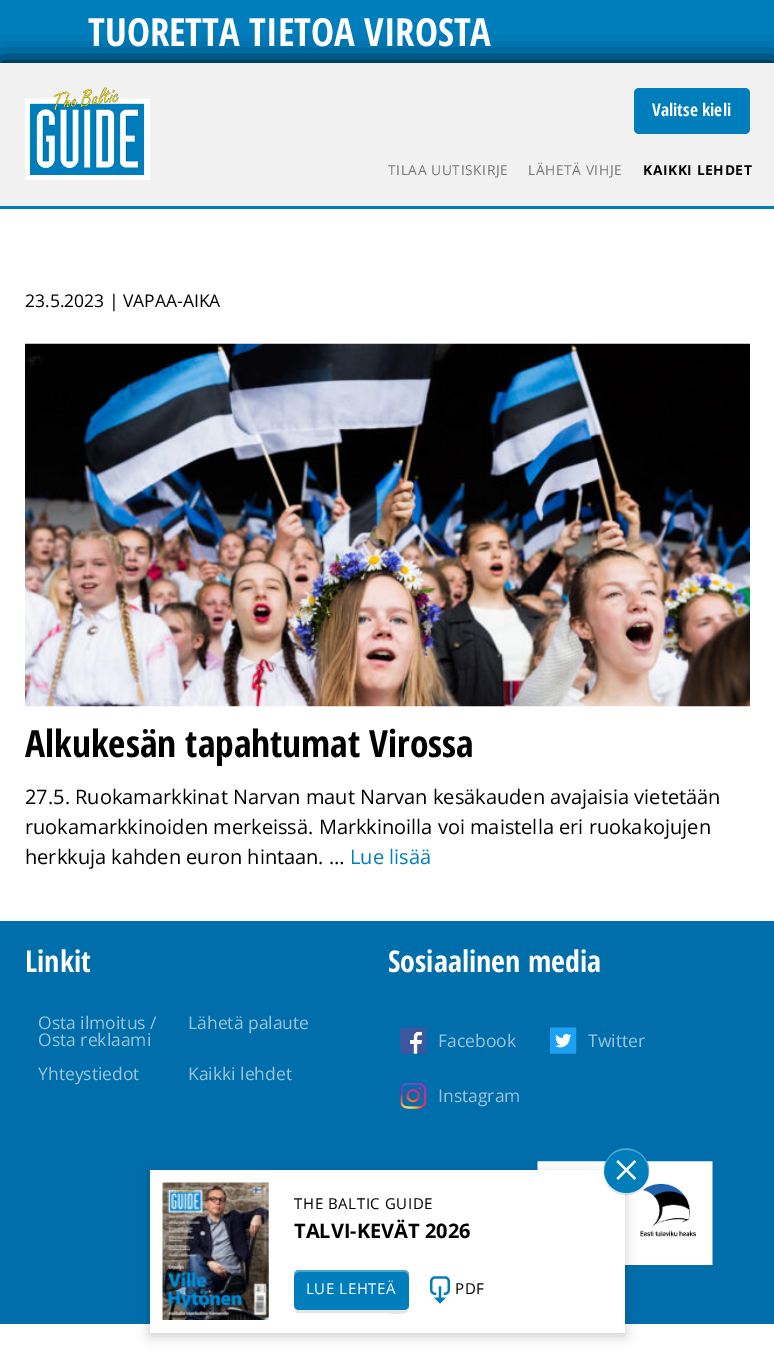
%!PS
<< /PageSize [774 1363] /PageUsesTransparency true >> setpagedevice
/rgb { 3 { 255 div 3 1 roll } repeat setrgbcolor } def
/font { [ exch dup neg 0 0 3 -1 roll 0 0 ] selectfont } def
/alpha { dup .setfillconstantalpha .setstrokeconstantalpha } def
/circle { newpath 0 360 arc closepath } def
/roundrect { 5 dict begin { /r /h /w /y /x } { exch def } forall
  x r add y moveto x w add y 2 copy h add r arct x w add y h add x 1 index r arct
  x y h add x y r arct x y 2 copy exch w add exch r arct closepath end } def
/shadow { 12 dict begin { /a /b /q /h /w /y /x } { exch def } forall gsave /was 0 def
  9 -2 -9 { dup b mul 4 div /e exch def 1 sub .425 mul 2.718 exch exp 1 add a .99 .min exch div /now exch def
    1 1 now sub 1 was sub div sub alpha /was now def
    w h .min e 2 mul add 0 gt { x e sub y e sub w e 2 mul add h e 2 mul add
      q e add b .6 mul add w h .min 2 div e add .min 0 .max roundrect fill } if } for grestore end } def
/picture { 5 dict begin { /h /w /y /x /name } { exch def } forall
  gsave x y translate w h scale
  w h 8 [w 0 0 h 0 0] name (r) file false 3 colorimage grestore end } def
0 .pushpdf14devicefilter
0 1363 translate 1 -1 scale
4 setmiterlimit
255 255 255 rgb
0 0 774 1363 rectfill
0 125 187 rgb
0 0 774 63 rectfill
gsave
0 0 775 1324 rectclip
0 0 0 rgb
0 63 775 1261 0 12.5 1 shadow
grestore
[
  [0 209 774 712 255 255 255]
  [0 63 774 143 241 241 241]
  [0 206 774 3 0 125 188]
] { aload pop rgb rectfill } forall
(img/1.rgb) 25 87 125 93 picture
0 125 187 rgb
634 88 116 46 5 roundrect fill
(img/2.rgb) 25 343 725 364 picture
0 110 171 rgb
0 921 774 403 rectfill
(img/3.rgb) 400 1027 27 27 picture
(img/4.rgb) 550 1027 27 27 picture
(img/5.rgb) 400 1082 27 27 picture
(img/6.rgb) 537 1161 176 104 picture
0 0 0 rgb
150 1174 475 162 0 6 0.2 shadow
255 255 255 rgb
150 1170 475 163 rectfill
0.1 alpha
0 0 0 rgb
604 1174 moveto 604 1178 606 1182 608 1186 curveto 622 1205 652 1192 649 1169 curveto 650 1197 608 1201 604 1174 curveto closepath fill
1 alpha
0 125 187 rgb
626.5 1170.5 22.5 circle fill
(img/7.rgb) 616 1160 20 20 picture
0.3 alpha
255 255 255 rgb
626 1150 moveto 643 1150 650 1164 648 1177 curveto 655 1153 622 1137 608 1158 curveto 605 1163 603 1169 604 1174 curveto 604 1162 611 1150 626 1150 curveto closepath fill
1 alpha
(img/8.rgb) 162 1182 107 138 picture
230 230 230 rgb
294 1307 moveto 294 1310 295 1313 299 1313 curveto 386 1313 lineto 387 1313 407 1317 409 1309 curveto 409 1276 lineto 409 1306 lineto 407 1309 lineto 405 1310 lineto 299 1310 lineto 297 1310 295 1309 294 1307 curveto closepath fill
0 125 187 rgb
294 1270 115 40 5 roundrect fill
0.3 alpha
255 255 255 rgb
299 1272 moveto 404 1272 lineto 407 1272 409 1275 409 1278 curveto 409 1275 lineto 409 1272 407 1270 404 1270 curveto 299 1270 lineto 296 1270 294 1272 294 1275 curveto 294 1278 lineto 294 1275 296 1272 299 1272 curveto closepath fill
1 alpha
(img/9.rgb) 430 1276 20 28 picture
/OpenSansCondensed-Bold 38.75 font
88 46 moveto (TUORETTA TIETOA VIROSTA) show
/OpenSansCondensed-Bold 17.5 font
652 116 moveto (Valitse kieli) show
/OpenSans-Regular 13.75 font
119 119 119 rgb
388 175 moveto 0.6 0 (TILAA UUTISKIRJE) ashow
528 175 moveto 0.6 0 (LÄHETÄ VIHJE) ashow
/OpenSans-Bold 13.75 font
0 0 0 rgb
643 175 moveto 0.6 0 (KAIKKI LEHDET) ashow
/OpenSans-Regular 17.5 font
25 307 moveto (23.5.2023 | VAPAA-AIKA) show
/OpenSansCondensed-Bold 37.5 font
25 757 moveto (Alkukesän tapahtumat Virossa) show
/OpenSans-Regular 20 font
[
  [(27.5. Ruokamarkkinat Narvan maut Narvan kesäkauden avajaisia vietetään) 25 804]
  [(ruokamarkkinoiden merkeissä. Markkinoilla voi maistella eri ruokakojujen) 25 834]
  [(herkkuja kahden euron hintaan. …) 25 864]
] { aload pop moveto show } forall
0 125 187 rgb
350 864 moveto (Lue lisää) show
/OpenSansCondensed-Bold 30 font
255 255 255 rgb
25 972 moveto (Linkit) show
/OpenSans-Regular 17.5 font
153 197 221 rgb
[
  [(Osta ilmoitus /) 38 1029]
  [(Osta reklaami) 38 1046]
  [(Lähetä palaute) 188 1029]
  [(Yhteystiedot) 38 1080]
  [(Kaikki lehdet) 188 1080]
] { aload pop moveto show } forall
/OpenSansCondensed-Bold 30 font
255 255 255 rgb
388 972 moveto (Sosiaalinen media) show
/OpenSans-Regular 17.5 font
153 197 221 rgb
[
  [(Facebook) 438 1047]
  [(Twitter) 588 1047]
  [(Instagram) 438 1102]
] { aload pop moveto show } forall
/OpenSans-Regular 15 font
0 0 0 rgb
294 1209 moveto 0.6 0 (THE BALTIC GUIDE) ashow
/OpenSans-Bold 20 font
294 1238 moveto (TALVI-KEVÄT 2026) show
/OpenSans-Regular 15 font
255 255 255 rgb
306 1294 moveto 0.6 0 (LUE LEHTEÄ) ashow
0 0 0 rgb
455 1294 moveto 0.6 0 (PDF) ashow
.poppdf14devicefilter showpage
